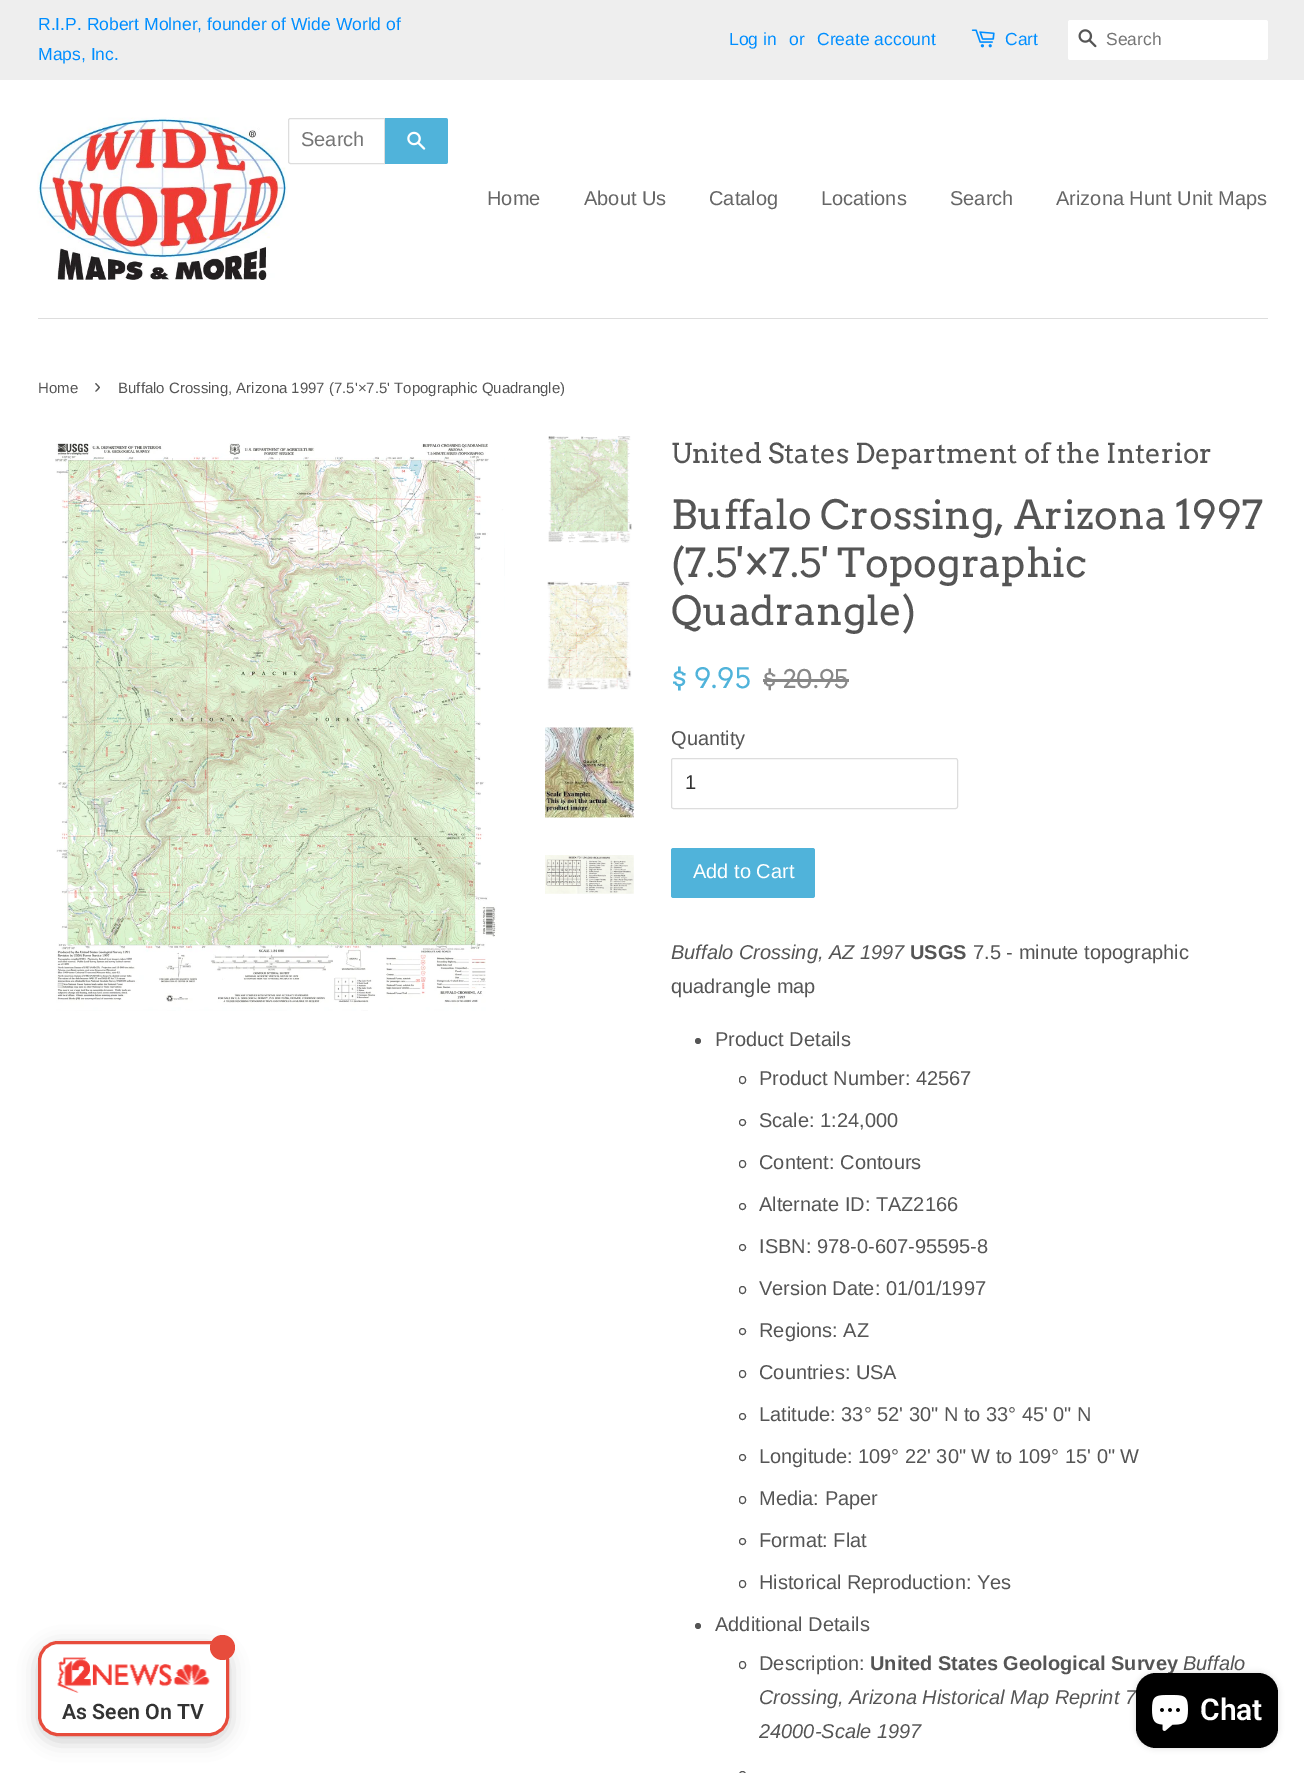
%!PS
<< /PageSize [1304 1773] /PageUsesTransparency true >> setpagedevice
/rgb { 3 { 255 div 3 1 roll } repeat setrgbcolor } def
/font { [ exch dup neg 0 0 3 -1 roll 0 0 ] selectfont } def
/alpha { dup .setfillconstantalpha .setstrokeconstantalpha } def
/circle { newpath 0 360 arc closepath } def
/roundrect { 5 dict begin { /r /h /w /y /x } { exch def } forall
  x r add y moveto x w add y 2 copy h add r arct x w add y h add x 1 index r arct
  x y h add x y r arct x y 2 copy exch w add exch r arct closepath end } def
/shadow { 12 dict begin { /a /b /q /h /w /y /x } { exch def } forall gsave /was 0 def
  9 -2 -9 { dup b mul 4 div /e exch def 1 sub .425 mul 2.718 exch exp 1 add a .99 .min exch div /now exch def
    1 1 now sub 1 was sub div sub alpha /was now def
    w h .min e 2 mul add 0 gt { x e sub y e sub w e 2 mul add h e 2 mul add
      q e add b .6 mul add w h .min 2 div e add .min 0 .max roundrect fill } if } for grestore end } def
/picture { 5 dict begin { /h /w /y /x /name } { exch def } forall
  gsave x y translate w h scale
  w h 8 [w 0 0 h 0 0] name (r) file false 3 colorimage grestore end } def
0 .pushpdf14devicefilter
0 1773 translate 1 -1 scale
4 setmiterlimit
255 255 255 rgb
0 0 1304 1773 rectfill
238 238 238 rgb
0 0 1304 80 rectfill
(img/1.rgb) 971 29 24 19 picture
255 255 255 rgb
1068 20 200 40 2.5 roundrect fill
(img/2.rgb) 1078 29 19 19 picture
221 221 221 rgb
38 318 1230 1 rectfill
(img/3.rgb) 37 117 251 163 picture
290.5 118.5 moveto 384.5 118.5 lineto 384.5 163.5 lineto 290.5 163.5 lineto 289.5 163.5 288.5 162.5 288.5 161.5 curveto 288.5 120.5 lineto 288.5 119.5 289.5 118.5 290.5 118.5 curveto closepath stroke
80 179 218 rgb
385 118 moveto 445.5 118 lineto 447 118 448 119 448 120.5 curveto 448 161.5 lineto 448 163 447 164 445.5 164 curveto 385 164 lineto closepath fill
(img/4.rgb) 407 131 19 19 picture
(img/5.rgb) 55 443 450 568 picture
(img/6.rgb) 548 436 84 107 picture
(img/7.rgb) 547 581 85 109 picture
(img/8.rgb) 545 727 89 91 picture
(img/9.rgb) 545 855 89 39 picture
136 136 136 rgb
763 679 86 3 rectfill
221 221 221 rgb
671.5 758.5 286 50 2 roundrect stroke
80 179 218 rgb
671 848 144 50 2.5 roundrect fill
85 85 85 rgb
698 1041 3 circle fill
739.5 1076.5 6 7 3 roundrect stroke
742.5 1122.5 3 circle stroke
739.5 1160.5 6 7 3 roundrect stroke
742.5 1206.5 3 circle stroke
742.5 1247.5 3 circle stroke
739.5 1286.5 6 7 3 roundrect stroke
742.5 1331.5 3 circle stroke
739.5 1370.5 6 7 3 roundrect stroke
742.5 1416.5 3 circle stroke
742.5 1457.5 3 circle stroke
739.5 1496.5 6 7 3 roundrect stroke
742.5 1541.5 3 circle stroke
739.5 1580.5 6 7 3 roundrect stroke
698 1626 3 circle fill
739.5 1661.5 6 7 3 roundrect stroke
742.5 1774.5 3 circle stroke
0 0 0 rgb
38 1646 191 95 20 9.5 0.2 shadow
255 255 255 rgb
39.5 1642.5 188 92 18.5 roundrect gsave fill grestore
231 76 60 rgb
3 setlinewidth
stroke
222.5 1647.5 12.5 circle fill
(img/10.rgb) 57 1657 153 36 picture
0 0 0 rgb
1136 1673 142 75 20 3 0.15 shadow
/LiberationSans-Regular 17.5 font
0 142 255 rgb
[
  [(R.I.P. Robert Molner, founder of Wide World of) 38 30]
  [(Maps, Inc.) 38 60]
  [(Log in) 729 45]
  [(or) 789 45]
  [(Create account) 817 45]
  [(Cart) 1005 45]
] { aload pop moveto show } forall
117 117 117 rgb
1106 45 moveto (Search) show
/LiberationSans-Regular 20 font
301 146 moveto (Search) show
102 102 102 rgb
[
  [(Home) 487 205]
  [(About Us) 584 205]
  [(Catalog) 709 205]
  [(Locations) 821 205]
  [(Search) 950 205]
  [(Arizona Hunt Unit Maps) 1056 205]
] { aload pop moveto show } forall
/LiberationSans-Regular 15 font
85 85 85 rgb
38 393 moveto (Home) show
/LiberationSans-Regular 21 font
94 393 moveto (›) show
/LiberationSans-Regular 15 font
118 393 moveto (Buffalo Crossing, Arizona 1997 \(7.5'×7.5' Topographic Quadrangle\)) show
/Arvo-Regular 27.5 font
671 463 moveto (United States Department of the Interior) show
/Arvo-Regular 40 font
[
  [(Buffalo Crossing, Arizona 1997) 671 529]
  [(\(7.5'×7.5' Topographic) 671 577]
  [(Quadrangle\)) 671 625]
] { aload pop moveto show } forall
/Arvo-Regular 28 font
80 179 218 rgb
671 688 moveto ($ 9.95) show
/Arvo-Regular 25.5 font
136 136 136 rgb
762 688 moveto ($ 20.95) show
/LiberationSans-Regular 20 font
85 85 85 rgb
671 745 moveto (Quantity) show
51 51 51 rgb
685 789 moveto (1) show
255 255 255 rgb
693 878 moveto (Add to Cart) show
/LiberationSans-Italic 20 font
85 85 85 rgb
671 959 moveto (Buffalo Crossing, AZ 1997) show
/LiberationSans-Bold 20 font
910 959 moveto (USGS) show
/LiberationSans-Regular 20 font
[
  [(7.5 - minute topographic) 973 959]
  [(quadrangle map) 671 993]
  [(Product Details) 715 1046]
  [(Product Number: 42567) 759 1085]
  [(Scale: 1:24,000) 759 1127]
  [(Content: Contours) 759 1169]
  [(Alternate ID: TAZ2166) 759 1211]
  [(ISBN: 978-0-607-95595-8) 759 1253]
  [(Version Date: 01/01/1997) 759 1295]
  [(Regions: AZ) 759 1337]
  [(Countries: USA) 759 1379]
  [(Latitude: 33° 52' 30" N to 33° 45' 0" N) 759 1421]
  [(Longitude: 109° 22' 30" W to 109° 15' 0" W) 759 1463]
  [(Media: Paper) 759 1505]
  [(Format: Flat) 759 1547]
  [(Historical Reproduction: Yes) 759 1589]
  [(Additional Details) 715 1631]
  [(Description:) 759 1670]
] { aload pop moveto show } forall
/LiberationSans-Bold 20 font
870 1670 moveto (United States Geological Survey) show
/LiberationSans-Italic 20 font
[
  [(Buffalo) 1183 1670]
  [(Crossing, Arizona Historical Map Reprint 7) 759 1704]
  [(24000-Scale 1997) 759 1738]
] { aload pop moveto show } forall
/Roboto-SemiBold 21.25 font
51 51 51 rgb
62 1719 moveto (As Seen On TV) show
0 0 0 rgb
1136 1673 142 75 20 roundrect fill
(img/11.rgb) 1152 1695 36 36 picture
/Roboto-SemiBold 30 font
255 255 255 rgb
1200 1720 moveto (Chat) show
.poppdf14devicefilter showpage
